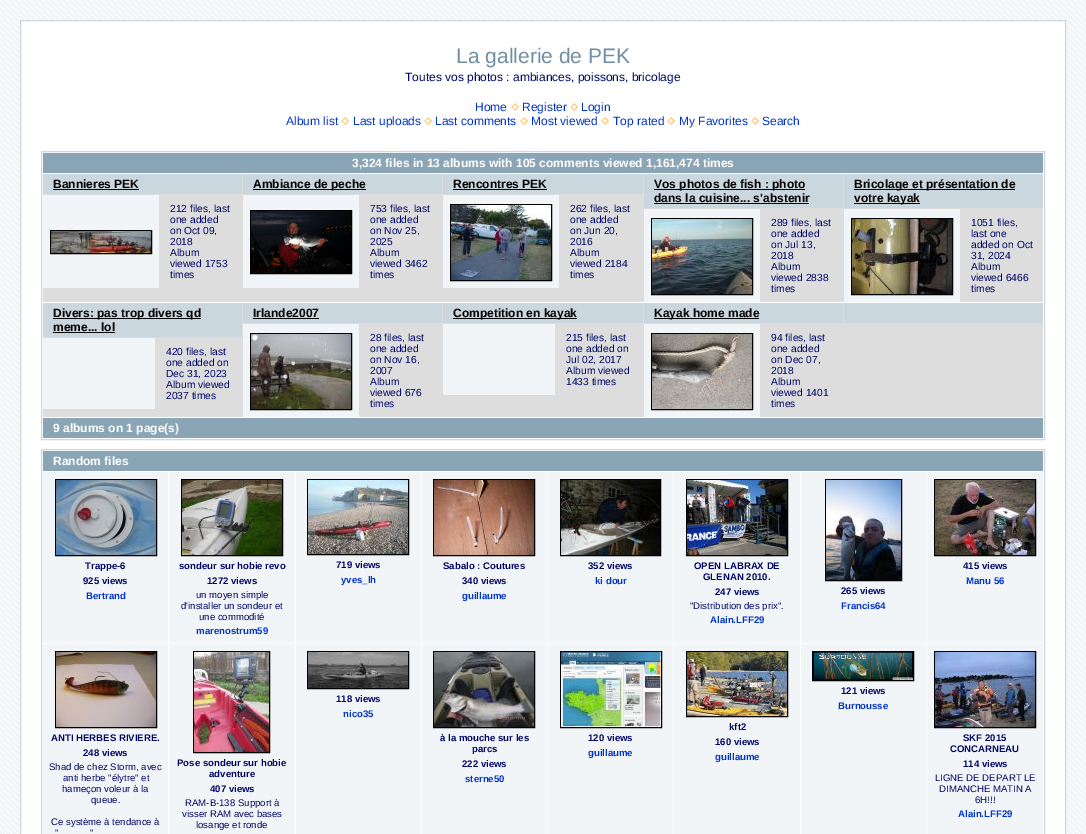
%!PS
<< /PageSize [1086 834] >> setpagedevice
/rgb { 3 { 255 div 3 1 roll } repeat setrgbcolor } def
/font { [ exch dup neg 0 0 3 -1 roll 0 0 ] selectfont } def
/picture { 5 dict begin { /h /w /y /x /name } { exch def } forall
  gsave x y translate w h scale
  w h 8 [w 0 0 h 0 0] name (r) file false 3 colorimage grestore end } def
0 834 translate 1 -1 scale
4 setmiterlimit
242 245 247 rgb
0 0 1086 834 rectfill
(img/1.rgb) 0 0 1086 834 picture
255 255 255 rgb
20.5 20.5 moveto 1065.5 20.5 lineto 1065.5 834.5 lineto 20.5 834.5 lineto closepath gsave fill grestore
204 215 224 rgb
stroke
(img/2.rgb) 511 103 8 8 picture
(img/2.rgb) 570 103 8 8 picture
(img/2.rgb) 341 117 8 8 picture
(img/2.rgb) 424 117 8 8 picture
(img/2.rgb) 520 117 8 8 picture
(img/2.rgb) 601 117 8 8 picture
(img/2.rgb) 667 117 8 8 picture
(img/2.rgb) 751 117 8 8 picture
41.5 151.5 1003 288 rectstroke
[
  [43 153 1000 20 138 165 181]
  [43 174 1000 128 221 221 221]
  [43 174 199 20 203 215 222]
  [53 189 86 1 0 0 0]
  [43 195 116 93 242 245 247]
] { aload pop rgb rectfill } forall
0 0 0 rgb
50.5 230.5 101 23 rectstroke
(img/3.rgb) 51 231 100 22 picture
[
  [243 174 199 20 203 215 222]
  [253 189 113 1 0 0 0]
  [243 195 116 93 242 245 247]
] { aload pop rgb rectfill } forall
0 0 0 rgb
250.5 210.5 101 63 rectstroke
(img/4.rgb) 251 211 100 62 picture
[
  [443 174 200 20 203 215 222]
  [453 189 94 1 0 0 0]
  [443 195 116 93 242 245 247]
] { aload pop rgb rectfill } forall
0 0 0 rgb
450.5 204.5 101 76 rectstroke
(img/5.rgb) 451 205 100 75 picture
[
  [644 174 199 34 203 215 222]
  [654 189 151 1 0 0 0]
  [654 203 155 1 0 0 0]
  [644 209 116 93 242 245 247]
] { aload pop rgb rectfill } forall
0 0 0 rgb
651.5 218.5 101 76 rectstroke
(img/6.rgb) 652 219 100 75 picture
[
  [844 174 199 34 203 215 222]
  [854 189 161 1 0 0 0]
  [854 203 66 1 0 0 0]
  [844 209 116 93 242 245 247]
] { aload pop rgb rectfill } forall
0 0 0 rgb
851.5 218.5 101 76 rectstroke
(img/7.rgb) 852 219 100 75 picture
[
  [43 303 1000 114 221 221 221]
  [43 303 199 34 203 215 222]
  [53 318 148 1 0 0 0]
  [53 332 62 1 0 0 0]
  [43 338 112 71 242 245 247]
  [243 303 199 20 203 215 222]
  [253 318 66 1 0 0 0]
  [243 324 116 93 242 245 247]
] { aload pop rgb rectfill } forall
0 0 0 rgb
250.5 333.5 101 76 rectstroke
(img/8.rgb) 251 334 100 75 picture
[
  [443 303 200 20 203 215 222]
  [453 318 124 1 0 0 0]
  [443 324 112 71 242 245 247]
  [644 303 199 20 203 215 222]
  [654 318 105 1 0 0 0]
  [644 324 116 93 242 245 247]
] { aload pop rgb rectfill } forall
0 0 0 rgb
651.5 333.5 101 76 rectstroke
(img/9.rgb) 652 334 100 75 picture
203 215 222 rgb
844 303 199 20 rectfill
138 165 181 rgb
43 418 1000 20 rectfill
204 215 224 rgb
41.5 449.5 1003 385 rectstroke
138 165 181 rgb
43 451 1000 20 rectfill
242 245 247 rgb
43 472 125 171 rectfill
0 0 0 rgb
55.5 479.5 101 76 rectstroke
(img/10.rgb) 56 480 100 75 picture
242 245 247 rgb
169 472 126 171 rectfill
0 0 0 rgb
181.5 479.5 101 76 rectstroke
(img/11.rgb) 182 480 100 75 picture
242 245 247 rgb
296 472 125 171 rectfill
0 0 0 rgb
307.5 479.5 101 75 rectstroke
(img/12.rgb) 308 480 100 74 picture
242 245 247 rgb
422 472 125 171 rectfill
0 0 0 rgb
433.5 479.5 101 76 rectstroke
(img/13.rgb) 434 480 100 75 picture
242 245 247 rgb
548 472 125 171 rectfill
0 0 0 rgb
560.5 479.5 100 76 rectstroke
(img/14.rgb) 561 480 99 75 picture
242 245 247 rgb
674 472 126 171 rectfill
0 0 0 rgb
686.5 479.5 101 76 rectstroke
(img/15.rgb) 687 480 100 75 picture
242 245 247 rgb
927 472 116 171 rectfill
0 0 0 rgb
934.5 479.5 101 76 rectstroke
(img/16.rgb) 935 480 100 75 picture
242 245 247 rgb
801 472 125 171 rectfill
0 0 0 rgb
825.5 479.5 76 101 rectstroke
(img/17.rgb) 826 480 75 100 picture
242 245 247 rgb
296 644 125 190 rectfill
0 0 0 rgb
307.5 651.5 101 37 rectstroke
(img/18.rgb) 308 652 100 36 picture
242 245 247 rgb
801 644 125 190 rectfill
0 0 0 rgb
812.5 651.5 101 29 rectstroke
(img/19.rgb) 813 652 100 28 picture
242 245 247 rgb
43 644 125 190 rectfill
0 0 0 rgb
55.5 651.5 101 76 rectstroke
(img/20.rgb) 56 652 100 75 picture
242 245 247 rgb
169 644 126 190 rectfill
0 0 0 rgb
193.5 651.5 76 101 rectstroke
(img/21.rgb) 194 652 75 100 picture
242 245 247 rgb
422 644 125 190 rectfill
0 0 0 rgb
433.5 651.5 101 76 rectstroke
(img/22.rgb) 434 652 100 75 picture
242 245 247 rgb
548 644 125 190 rectfill
0 0 0 rgb
560.5 651.5 101 76 rectstroke
(img/23.rgb) 561 652 100 75 picture
242 245 247 rgb
674 644 126 190 rectfill
0 0 0 rgb
686.5 651.5 101 65 rectstroke
(img/24.rgb) 687 652 100 64 picture
242 245 247 rgb
927 644 116 190 rectfill
0 0 0 rgb
934.5 651.5 101 76 rectstroke
(img/25.rgb) 935 652 100 75 picture
/LiberationSans-Regular 21 font
113 142 165 rgb
456 63 moveto (La gallerie de PEK) show
/LiberationSans-Regular 12 font
0 6 102 rgb
405 81 moveto (Toutes vos photos : ambiances, poissons, bricolage) show
0 51 204 rgb
[
  [(Home) 475 111]
  [(Register) 522 111]
  [(Login) 581 111]
  [(Album list) 286 125]
  [(Last uploads) 353 125]
  [(Last comments) 435 125]
  [(Most viewed) 531 125]
  [(Top rated) 613 125]
  [(My Favorites) 679 125]
  [(Search) 762 125]
] { aload pop moveto show } forall
/LiberationSans-Bold 12 font
255 255 255 rgb
352 167 moveto (3,324 files in 13 albums with 105 comments viewed 1,161,474 times) show
0 0 0 rgb
53 188 moveto (Bannieres PEK) show
/LiberationSans-Regular 10.25 font
0 6 102 rgb
[
  [(212 files, last) 170 212]
  [(one added) 170 223]
  [(on Oct 09,) 170 234]
  [(2018) 170 245]
  [(Album) 170 256]
  [(viewed 1753) 170 267]
  [(times) 170 278]
] { aload pop moveto show } forall
/LiberationSans-Bold 12 font
0 0 0 rgb
253 188 moveto (Ambiance de peche) show
/LiberationSans-Regular 10.25 font
0 6 102 rgb
[
  [(753 files, last) 370 212]
  [(one added) 370 223]
  [(on Nov 25,) 370 234]
  [(2025) 370 245]
  [(Album) 370 256]
  [(viewed 3462) 370 267]
  [(times) 370 278]
] { aload pop moveto show } forall
/LiberationSans-Bold 12 font
0 0 0 rgb
453 188 moveto (Rencontres PEK) show
/LiberationSans-Regular 10.25 font
0 6 102 rgb
[
  [(262 files, last) 570 212]
  [(one added) 570 223]
  [(on Jun 20,) 570 234]
  [(2016) 570 245]
  [(Album) 570 256]
  [(viewed 2184) 570 267]
  [(times) 570 278]
] { aload pop moveto show } forall
/LiberationSans-Bold 12 font
0 0 0 rgb
654 188 moveto (Vos photos de fish : photo) show
654 202 moveto (dans la cuisine... s'abstenir) show
/LiberationSans-Regular 10.25 font
0 6 102 rgb
[
  [(289 files, last) 771 226]
  [(one added) 771 237]
  [(on Jul 13,) 771 248]
  [(2018) 771 259]
  [(Album) 771 270]
  [(viewed 2838) 771 281]
  [(times) 771 292]
] { aload pop moveto show } forall
/LiberationSans-Bold 12 font
0 0 0 rgb
854 188 moveto (Bricolage et présentation de) show
854 202 moveto (votre kayak) show
/LiberationSans-Regular 10.25 font
0 6 102 rgb
[
  [(1051 files,) 971 226]
  [(last one) 971 237]
  [(added on Oct) 971 248]
  [(31, 2024) 971 259]
  [(Album) 971 270]
  [(viewed 6466) 971 281]
  [(times) 971 292]
] { aload pop moveto show } forall
/LiberationSans-Bold 12 font
0 0 0 rgb
53 317 moveto (Divers: pas trop divers qd) show
53 331 moveto (meme... lol) show
/LiberationSans-Regular 10.25 font
0 6 102 rgb
[
  [(420 files, last) 166 355]
  [(one added on) 166 366]
  [(Dec 31, 2023) 166 377]
  [(Album viewed) 166 388]
  [(2037 times) 166 399]
] { aload pop moveto show } forall
/LiberationSans-Bold 12 font
0 0 0 rgb
253 317 moveto (Irlande2007) show
/LiberationSans-Regular 10.25 font
0 6 102 rgb
[
  [(28 files, last) 370 341]
  [(one added) 370 352]
  [(on Nov 16,) 370 363]
  [(2007) 370 374]
  [(Album) 370 385]
  [(viewed 676) 370 396]
  [(times) 370 407]
] { aload pop moveto show } forall
/LiberationSans-Bold 12 font
0 0 0 rgb
453 317 moveto (Competition en kayak) show
/LiberationSans-Regular 10.25 font
0 6 102 rgb
[
  [(215 files, last) 566 341]
  [(one added on) 566 352]
  [(Jul 02, 2017) 566 363]
  [(Album viewed) 566 374]
  [(1433 times) 566 385]
] { aload pop moveto show } forall
/LiberationSans-Bold 12 font
0 0 0 rgb
654 317 moveto (Kayak home made) show
/LiberationSans-Regular 10.25 font
0 6 102 rgb
[
  [(94 files, last) 771 341]
  [(one added) 771 352]
  [(on Dec 07,) 771 363]
  [(2018) 771 374]
  [(Album) 771 385]
  [(viewed 1401) 771 396]
  [(times) 771 407]
] { aload pop moveto show } forall
/LiberationSans-Bold 12 font
255 255 255 rgb
53 432 moveto (9 albums on 1 page\(s\)) show
53 465 moveto (Random files) show
/LiberationSans-Bold 9.6 font
0 6 102 rgb
85 569 moveto (Trappe-6) show
83 584 moveto (925 views) show
0 51 204 rgb
86 599 moveto (Bertrand) show
0 6 102 rgb
179 569 moveto (sondeur sur hobie revo) show
207 584 moveto (1272 views) show
/LiberationSans-Regular 9.6 font
[
  [(un moyen simple) 196 598]
  [(d'installer un sondeur et) 181 609]
  [(une commodité) 199 620]
] { aload pop moveto show } forall
/LiberationSans-Bold 9.6 font
0 51 204 rgb
196 634 moveto (marenostrum59) show
0 6 102 rgb
336 568 moveto (719 views) show
0 51 204 rgb
341 583 moveto (yves_lh) show
0 6 102 rgb
443 569 moveto (Sabalo : Coutures) show
462 584 moveto (340 views) show
0 51 204 rgb
462 599 moveto (guillaume) show
0 6 102 rgb
588 569 moveto (352 views) show
0 51 204 rgb
595 584 moveto (ki dour) show
0 6 102 rgb
[
  [(OPEN LABRAX DE) 694 569]
  [(GLENAN 2010.) 703 580]
  [(247 views) 715 595]
] { aload pop moveto show } forall
/LiberationSans-Regular 9.6 font
690 609 moveto ("Distribution des prix".) show
/LiberationSans-Bold 9.6 font
0 51 204 rgb
710 623 moveto (Alain.LFF29) show
0 6 102 rgb
963 569 moveto (415 views) show
0 51 204 rgb
966 584 moveto (Manu 56) show
0 6 102 rgb
841 594 moveto (265 views) show
0 51 204 rgb
841 609 moveto (Francis64) show
0 6 102 rgb
336 702 moveto (118 views) show
0 51 204 rgb
343 717 moveto (nico35) show
0 6 102 rgb
841 694 moveto (121 views) show
0 51 204 rgb
838 709 moveto (Burnousse) show
0 6 102 rgb
51 741 moveto (ANTI HERBES RIVIERE.) show
83 756 moveto (248 views) show
/LiberationSans-Regular 9.6 font
[
  [(Shad de chez Storm, avec) 49 770]
  [(anti herbe "élytre" et) 63 781]
  [(hameçon voleur à la) 62 792]
  [(queue.) 91 803]
  [(Ce système à tendance à) 51 825]
  [(") 55 836]
  [(") 90 836]
] { aload pop moveto show } forall
/LiberationSans-Bold 9.6 font
[
  [(Pose sondeur sur hobie) 177 766]
  [(adventure) 209 777]
  [(407 views) 210 792]
] { aload pop moveto show } forall
/LiberationSans-Regular 9.6 font
[
  [(RAM-B-138 Support à) 185 806]
  [(visser RAM avec bases) 182 817]
  [(losange et ronde) 196 828]
] { aload pop moveto show } forall
/LiberationSans-Bold 9.6 font
[
  [(à la mouche sur les) 440 741]
  [(parcs) 472 752]
  [(222 views) 462 767]
] { aload pop moveto show } forall
0 51 204 rgb
465 782 moveto (sterne50) show
0 6 102 rgb
588 741 moveto (120 views) show
0 51 204 rgb
588 756 moveto (guillaume) show
0 6 102 rgb
729 730 moveto (kft2) show
715 745 moveto (160 views) show
0 51 204 rgb
715 760 moveto (guillaume) show
0 6 102 rgb
[
  [(SKF 2015) 963 741]
  [(CONCARNEAU) 950 752]
  [(114 views) 963 767]
] { aload pop moveto show } forall
/LiberationSans-Regular 9.6 font
[
  [(LIGNE DE DEPART LE) 935 781]
  [(DIMANCHE MATIN A) 939 792]
  [(6H!!!) 975 803]
] { aload pop moveto show } forall
/LiberationSans-Bold 9.6 font
0 51 204 rgb
958 817 moveto (Alain.LFF29) show
showpage
